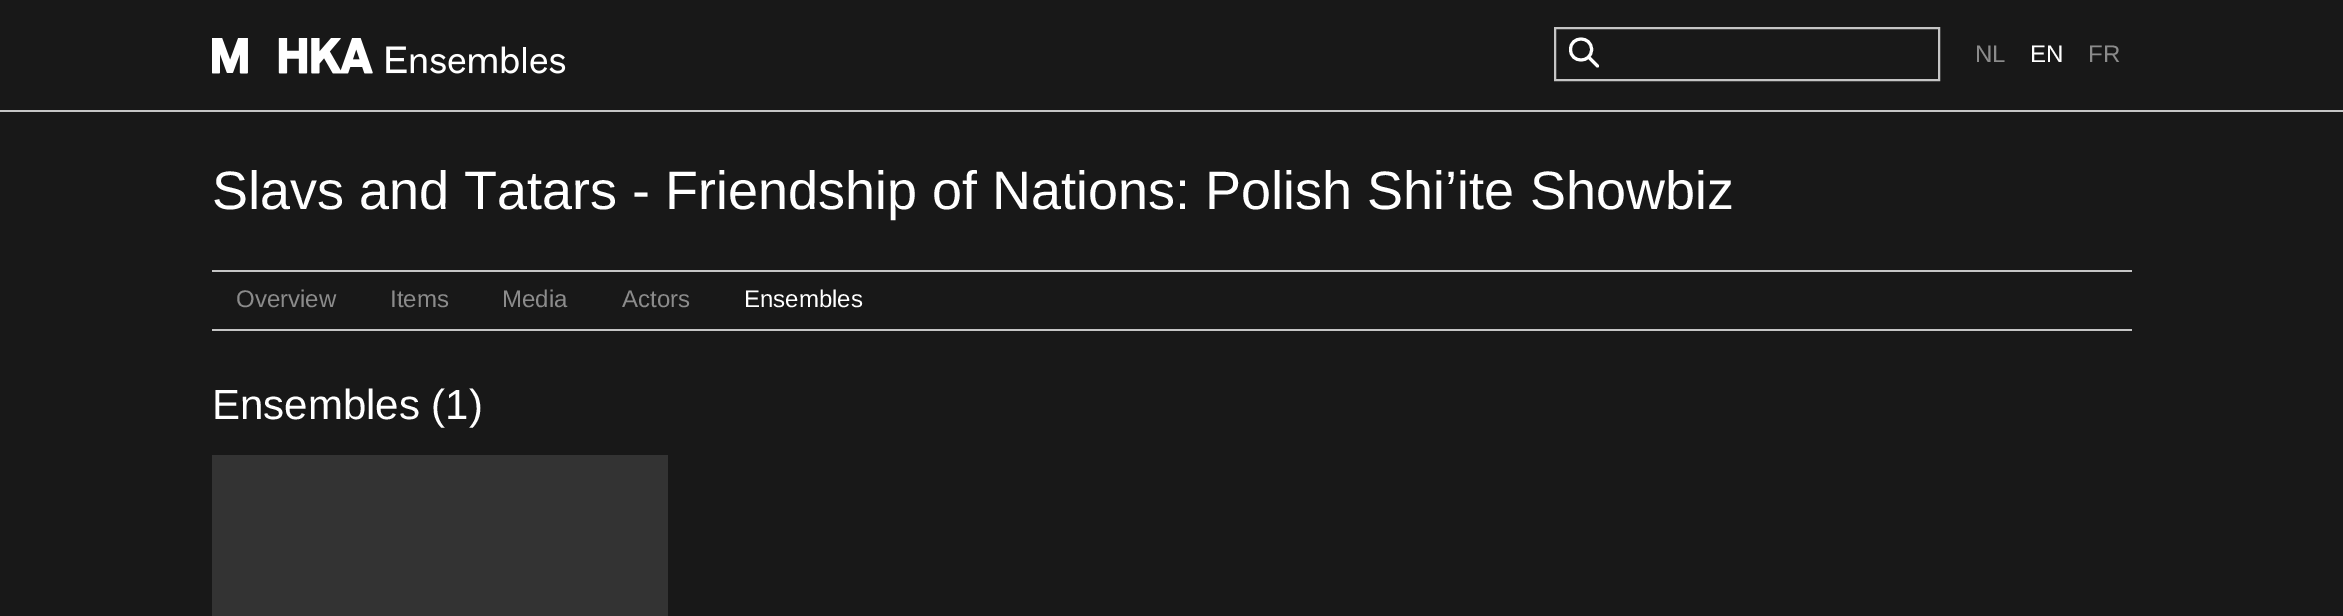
%!PS
<< /PageSize [2343 616] >> setpagedevice
/rgb { 3 { 255 div 3 1 roll } repeat setrgbcolor } def
/font { [ exch dup neg 0 0 3 -1 roll 0 0 ] selectfont } def
/picture { 5 dict begin { /h /w /y /x /name } { exch def } forall
  gsave x y translate w h scale
  w h 8 [w 0 0 h 0 0] name (r) file false 3 colorimage grestore end } def
0 616 translate 1 -1 scale
4 setmiterlimit
24 24 24 rgb
0 0 2343 616 rectfill
197 197 197 rgb
0 110 2343 2 rectfill
(img/1.rgb) 212 38 354 36 picture
2 setlinewidth
1555 28 384 52 rectstroke
255 255 255 rgb
3 setlinewidth
1 setlinecap
1 setlinejoin
1591.5 49.5 moveto 1591.5 63.5 1570.5 63.5 1570.5 49.5 curveto 1570.5 35.5 1591.5 35.5 1591.5 49.5 curveto closepath 1597.5 66 moveto 1588.5 57 lineto stroke
[
  [212 270 1920 2 197 197 197]
  [212 329 1920 2 197 197 197]
  [212 455 456 161 51 51 51]
] { aload pop rgb rectfill } forall
/LiberationSans-Regular 24 font
139 139 139 rgb
1975 62 moveto (NL) show
255 255 255 rgb
2030 62 moveto (EN) show
139 139 139 rgb
2088 62 moveto (FR) show
/LiberationSans-Regular 54 font
255 255 255 rgb
212 209 moveto (Slavs and Tatars - Friendship of Nations: Polish Shi’ite Showbiz) show
/LiberationSans-Regular 24 font
139 139 139 rgb
[
  [(Overview) 236 307]
  [(Items) 390 307]
  [(Media) 502 307]
  [(Actors) 622 307]
] { aload pop moveto show } forall
255 255 255 rgb
744 307 moveto (Ensembles) show
/LiberationSans-Regular 42 font
212 419 moveto (Ensembles \(1\)) show
showpage
